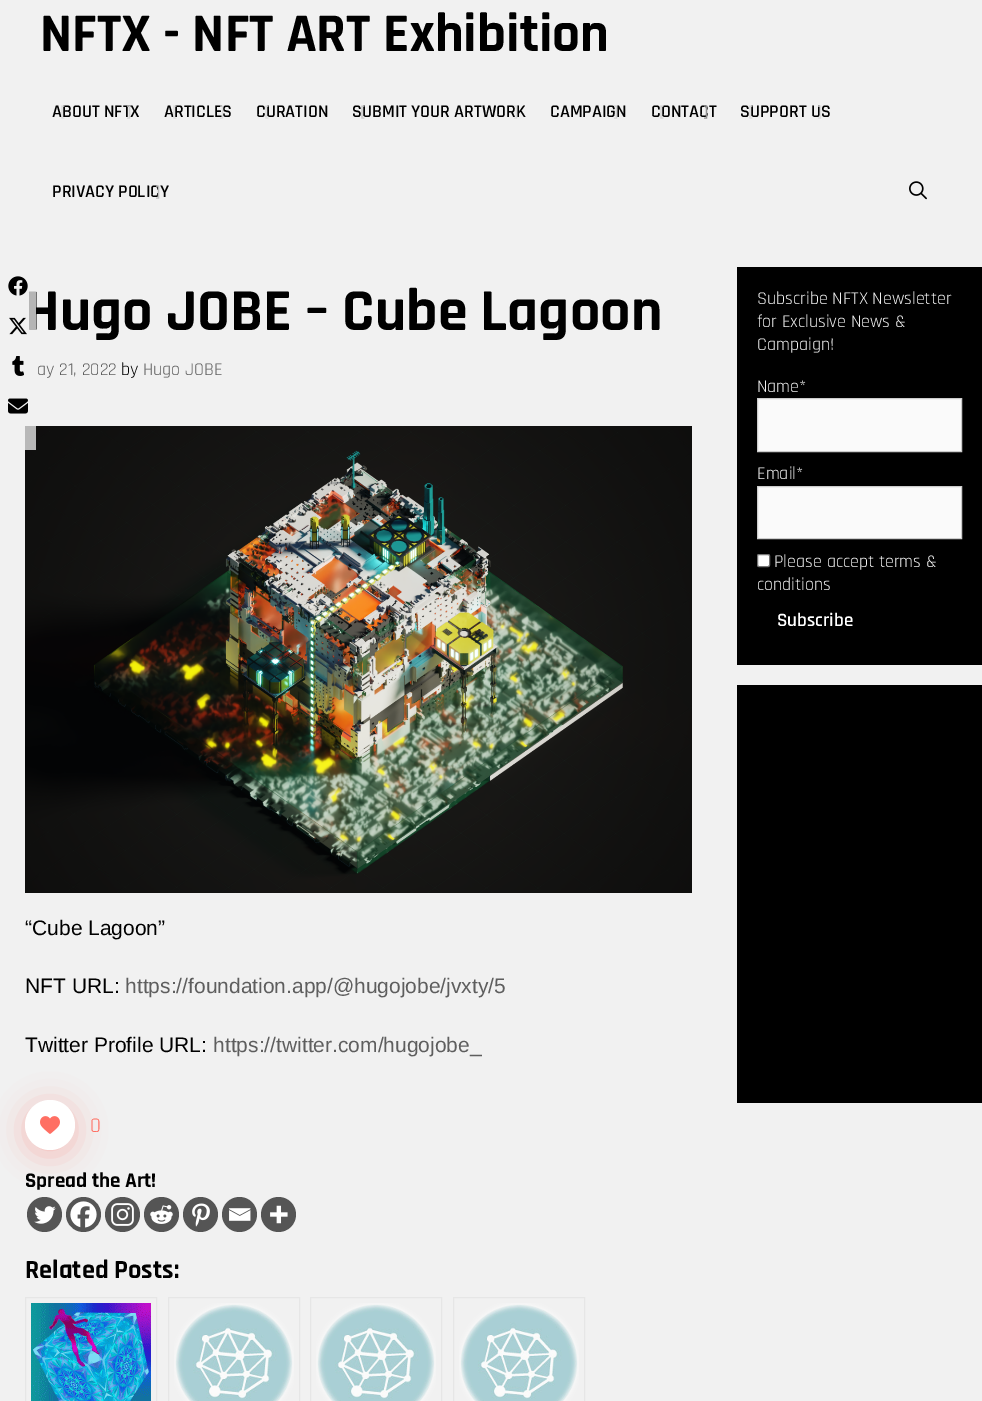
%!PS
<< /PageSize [982 1401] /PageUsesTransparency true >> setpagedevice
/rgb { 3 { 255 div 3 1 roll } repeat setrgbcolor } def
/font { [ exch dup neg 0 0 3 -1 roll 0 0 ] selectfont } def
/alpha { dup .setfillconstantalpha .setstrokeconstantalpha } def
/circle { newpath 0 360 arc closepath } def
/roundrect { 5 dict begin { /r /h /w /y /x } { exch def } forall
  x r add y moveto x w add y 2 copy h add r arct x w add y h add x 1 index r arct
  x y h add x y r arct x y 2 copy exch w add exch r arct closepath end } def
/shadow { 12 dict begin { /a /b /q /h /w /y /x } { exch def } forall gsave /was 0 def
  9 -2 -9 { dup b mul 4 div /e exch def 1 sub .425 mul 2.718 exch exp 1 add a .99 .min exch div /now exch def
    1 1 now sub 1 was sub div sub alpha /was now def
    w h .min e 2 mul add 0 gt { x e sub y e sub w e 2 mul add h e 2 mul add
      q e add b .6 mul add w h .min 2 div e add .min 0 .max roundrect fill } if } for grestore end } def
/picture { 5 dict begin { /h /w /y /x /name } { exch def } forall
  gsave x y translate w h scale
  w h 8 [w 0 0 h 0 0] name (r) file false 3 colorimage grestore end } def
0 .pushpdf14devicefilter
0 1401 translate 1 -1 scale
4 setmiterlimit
241 241 241 rgb
0 0 982 1401 rectfill
(img/1.rgb) 909 181 18 19 picture
(img/4.rgb) 12 356 12 20 picture
(img/6.rgb) 25 426 667 467 picture
85 85 85 rgb
44.5 1214.5 17.5 circle fill
83.5 1214.5 17.5 circle fill
122.5 1214.5 17.5 circle fill
255 111 99 rgb
25 1105 50 50 25 15 0.4 shadow
255 255 255 rgb
50 1125 25 circle fill
(img/7.rgb) 40 1116 20 18 picture
(img/8.rgb) 34 1206 22 18 picture
(img/9.rgb) 70 1201 27 27 picture
(img/10.rgb) 111 1203 23 23 picture
85 85 85 rgb
161.5 1214.5 17.5 circle fill
(img/11.rgb) 150 1205 23 19 picture
200.5 1214.5 17.5 circle fill
(img/12.rgb) 192 1203 18 24 picture
239.5 1214.5 17.5 circle fill
(img/13.rgb) 229 1208 22 13 picture
278.5 1214.5 17.5 circle fill
(img/14.rgb) 270 1205 18 19 picture
230 230 230 rgb
25.5 1297.5 131 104 rectstroke
(img/15.rgb) 31 1303 120 98 picture
168.5 1297.5 131 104 rectstroke
(img/16.rgb) 174 1303 120 98 picture
310.5 1297.5 131 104 rectstroke
(img/16.rgb) 316 1303 120 98 picture
453.5 1297.5 131 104 rectstroke
(img/16.rgb) 459 1303 120 98 picture
0 0 0 rgb
737 267 245 398 rectfill
250 250 250 rgb
757.5 398.5 moveto 961.5 398.5 lineto 961.5 451.5 lineto 757.5 451.5 lineto closepath gsave fill grestore
204 204 204 rgb
stroke
250 250 250 rgb
757.5 486.5 moveto 961.5 486.5 lineto 961.5 538.5 lineto 757.5 538.5 lineto closepath gsave fill grestore
204 204 204 rgb
stroke
255 255 255 rgb
757.5 554.5 12 12 1.5 roundrect gsave fill grestore
118 118 118 rgb
stroke
0 0 0 rgb
737 685 245 418 rectfill
/Rajdhani-Bold 55 font
40 51 moveto (NFTX - NFT ART Exhibition) show
/Rajdhani-SemiBold 18 font
52 117 moveto (ABOUT NFTX) show
219 219 219 rgb
60 117 moveto ([) show
209 209 209 rgb
126 117 moveto (]) show
0 0 0 rgb
164 117 moveto (ARTICLES) show
219 219 219 rgb
172 117 moveto ([) show
219 117 moveto (]) show
0 0 0 rgb
256 117 moveto (CURATION) show
219 219 219 rgb
264 117 moveto ([) show
0 0 0 rgb
352 117 moveto (SUBMIT YOUR ARTWORK) show
200 200 200 rgb
360 117 moveto ([) show
219 219 219 rgb
513 117 moveto (]) show
0 0 0 rgb
550 117 moveto (CAMPAIGN) show
209 209 209 rgb
613 117 moveto (]) show
0 0 0 rgb
651 117 moveto (CONTACT) show
209 209 209 rgb
659 117 moveto ([) show
144 144 144 rgb
703 117 moveto (]) show
0 0 0 rgb
740 117 moveto (SUPPORT US) show
219 219 219 rgb
748 117 moveto ([) show
817 117 moveto (]) show
0 0 0 rgb
52 197 moveto (PRIVACY POLICY) show
188 188 188 rgb
155 197 moveto (]) show
/Rajdhani-Bold 60 font
0 0 0 rgb
25 330 moveto (Hugo JOBE – Cube Lagoon) show
0.75 alpha
241 241 241 rgb
25 291 11 159 rectfill
1 alpha
(img/5.rgb) 8 398 20 16 picture
(img/3.rgb) 9 317 18 18 picture
(img/2.rgb) 8 276 20 20 picture
/Rajdhani-Regular 18 font
94 94 94 rgb
37 375 moveto (ay 21, 2022) show
0 0 0 rgb
121 375 moveto (by) show
94 94 94 rgb
143 375 moveto (Hugo JOBE) show
/LiberationSans-Regular 21 font
0 0 0 rgb
25 935 moveto (“Cube Lagoon”) show
25 993 moveto (NFT URL:) show
94 94 94 rgb
125 993 moveto (https://foundation.app/@hugojobe/jvxty/5) show
0 0 0 rgb
25 1052 moveto (Twitter Profile URL:) show
94 94 94 rgb
213 1052 moveto (https://twitter.com/hugojobe_) show
/Rajdhani-Regular 21 font
255 111 99 rgb
90 1132 moveto (0) show
/Rajdhani-Bold 21 font
0 0 0 rgb
25 1187 moveto (Spread the Art!) show
/Rajdhani-Bold 26.25 font
25 1278 moveto (Related Posts:) show
/Rajdhani-Regular 18 font
241 241 241 rgb
[
  [(Subscribe NFTX Newsletter) 757 304]
  [(for Exclusive News &) 757 327]
  [(Campaign!) 757 350]
  [(Name*) 757 392]
  [(Email*) 757 479]
  [(Please accept terms &) 774 567]
  [(conditions) 757 590]
] { aload pop moveto show } forall
/Rajdhani-SemiBold 19 font
255 255 255 rgb
777 626 moveto (Subscribe) show
.poppdf14devicefilter showpage
